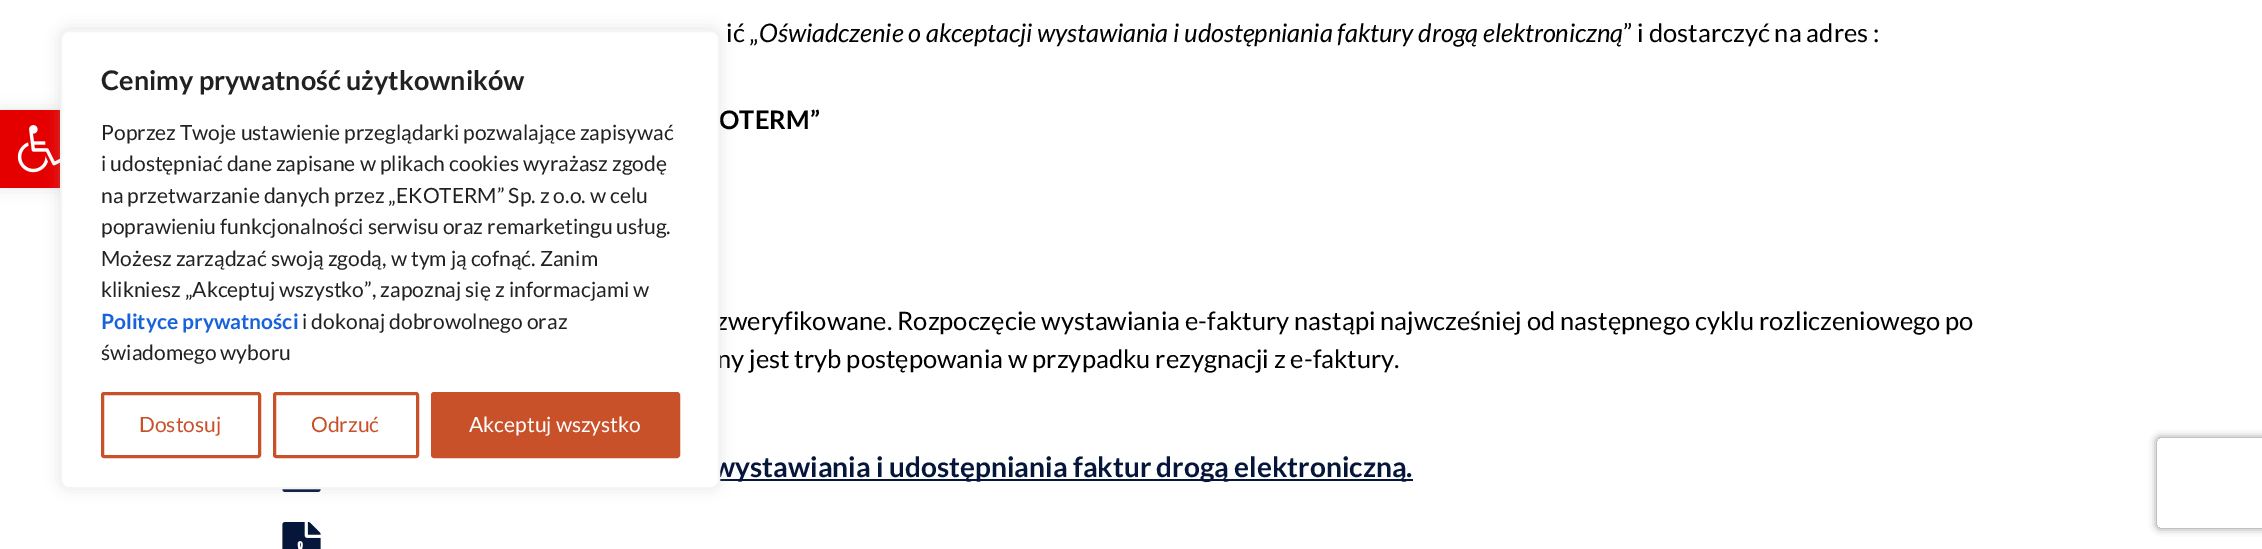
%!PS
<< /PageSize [2262 549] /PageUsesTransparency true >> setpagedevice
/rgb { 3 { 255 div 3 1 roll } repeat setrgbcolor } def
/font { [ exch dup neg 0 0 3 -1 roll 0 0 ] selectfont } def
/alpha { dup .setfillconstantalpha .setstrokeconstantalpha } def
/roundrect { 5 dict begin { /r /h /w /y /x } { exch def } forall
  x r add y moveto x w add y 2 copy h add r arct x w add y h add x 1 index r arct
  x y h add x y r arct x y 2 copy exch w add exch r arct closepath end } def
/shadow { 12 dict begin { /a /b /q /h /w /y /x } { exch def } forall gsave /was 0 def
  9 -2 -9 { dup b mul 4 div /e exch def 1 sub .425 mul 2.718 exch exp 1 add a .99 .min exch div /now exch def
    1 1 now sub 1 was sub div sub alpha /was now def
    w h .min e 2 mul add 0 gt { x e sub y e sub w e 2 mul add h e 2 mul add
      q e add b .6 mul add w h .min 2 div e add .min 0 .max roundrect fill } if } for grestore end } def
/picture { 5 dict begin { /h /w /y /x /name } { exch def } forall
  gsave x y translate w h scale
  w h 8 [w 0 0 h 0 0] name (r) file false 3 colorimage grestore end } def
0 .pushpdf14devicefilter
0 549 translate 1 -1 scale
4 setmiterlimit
255 255 255 rgb
0 0 2262 549 rectfill
0 0 0 rgb
0 110 78 78 0 7.5 0.1 shadow
229 0 0 rgb
0 110 60 78 rectfill
(img/1.rgb) 17 125 43 48 picture
6 22 58 rgb
719 479 694 2 rectfill
(img/2.rgb) 282 489 39 3 picture
172 171 171 rgb
60 29 660 459 9 7.5 0.3 shadow
(img/3.rgb) 282 522 39 27 picture
gsave
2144 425 moveto 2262 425 lineto 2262 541 lineto 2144 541 lineto closepath 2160 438 moveto 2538 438 lineto 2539.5 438 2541 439.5 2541 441 curveto 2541 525 lineto 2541 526.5 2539.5 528 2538 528 curveto 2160 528 lineto 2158.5 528 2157 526.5 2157 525 curveto 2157 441 lineto 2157 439.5 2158.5 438 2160 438 curveto closepath eoclip newpath
128 128 128 rgb
2157 438 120 90 3 4 1 shadow
grestore
/Lato-Regular 25.5 font
0 0 0 rgb
726 42 moveto (ić „) show
/Lato-Italic 25.5 font
759 42 moveto (Oświadczenie o akceptacji wystawiania i udostępniania faktury drogą elektroniczną) show
/Lato-Regular 25.5 font
1623 42 moveto (” i dostarczyć na adres :) show
/Lato-Bold 25.5 font
719 129 moveto (OTERM”) show
/Lato-Regular 25.5 font
716 330 moveto (zweryfikowane. Rozpoczęcie wystawiania e-faktury nastąpi najwcześniej od następnego cyklu rozliczeniowego po) show
717 368 moveto (ny jest tryb postępowania w przypadku rezygnacji z e-faktury.) show
/Lato-Bold 28.05 font
6 22 58 rgb
713 477 moveto (wystawiania i udostępniania faktur drogą elektroniczną.) show
255 255 255 rgb
61 31 658 457 8 roundrect gsave fill grestore
244 244 244 rgb
2 setlinewidth
stroke
200 81 42 rgb
432.5 393.5 246 63 1.5 roundrect gsave fill grestore
3 setlinewidth
stroke
/Lato-Regular 21 font
255 255 255 rgb
469 432 moveto (Akceptuj wszystko) show
200 81 42 rgb
274.5 393.5 143 63 1.5 roundrect stroke
311 432 moveto (Odrzuć) show
102.5 393.5 157 63 1.5 roundrect stroke
139 432 moveto (Dostosuj) show
33 33 33 rgb
101 360 moveto (świadomego wyboru) show
302 329 moveto (i dokonaj dobrowolnego oraz) show
/Lato-Bold 21 font
24 99 220 rgb
101 329 moveto (Polityce prywatności) show
/Lato-Regular 21 font
33 33 33 rgb
[
  [(klikniesz „Akceptuj wszystko”, zapoznaj się z informacjami w) 101 297]
  [(Możesz zarządzać swoją zgodą, w tym ją cofnąć. Zanim) 101 266]
  [(poprawieniu funkcjonalności serwisu oraz remarketingu usług.) 101 234]
  [(na przetwarzanie danych przez „EKOTERM” Sp. z o.o. w celu) 101 203]
  [(i udostępniać dane zapisane w plikach cookies wyrażasz zgodę) 101 171]
  [(Poprzez Twoje ustawienie przeglądarki pozwalające zapisywać) 101 140]
] { aload pop moveto show } forall
/Lato-Bold 27 font
101 90 moveto (Cenimy prywatność użytkowników) show
.poppdf14devicefilter showpage
